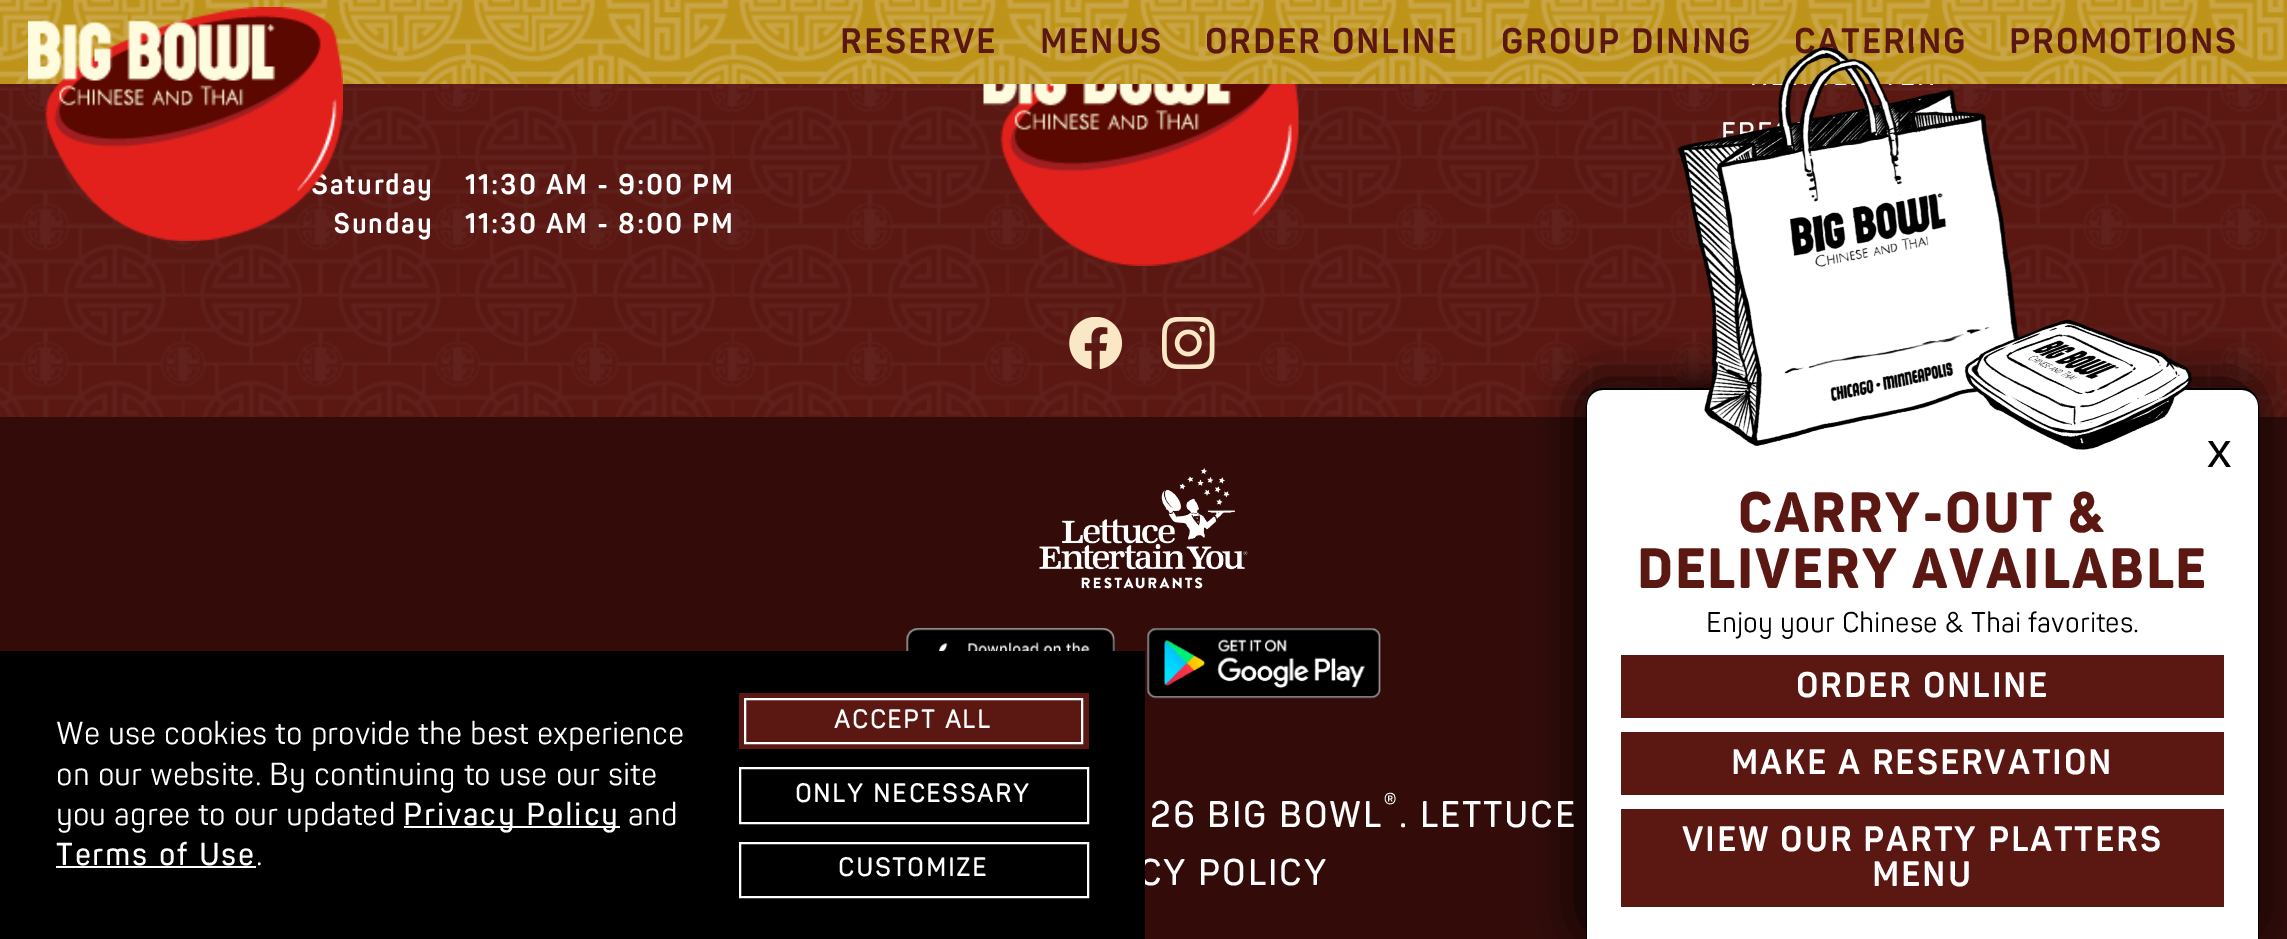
%!PS
<< /PageSize [2287 939] /PageUsesTransparency true >> setpagedevice
/rgb { 3 { 255 div 3 1 roll } repeat setrgbcolor } def
/font { [ exch dup neg 0 0 3 -1 roll 0 0 ] selectfont } def
/alpha { dup .setfillconstantalpha .setstrokeconstantalpha } def
/roundrect { 5 dict begin { /r /h /w /y /x } { exch def } forall
  x r add y moveto x w add y 2 copy h add r arct x w add y h add x 1 index r arct
  x y h add x y r arct x y 2 copy exch w add exch r arct closepath end } def
/shadow { 12 dict begin { /a /b /q /h /w /y /x } { exch def } forall gsave /was 0 def
  9 -2 -9 { dup b mul 4 div /e exch def 1 sub .425 mul 2.718 exch exp 1 add a .99 .min exch div /now exch def
    1 1 now sub 1 was sub div sub alpha /was now def
    w h .min e 2 mul add 0 gt { x e sub y e sub w e 2 mul add h e 2 mul add
      q e add b .6 mul add w h .min 2 div e add .min 0 .max roundrect fill } if } for grestore end } def
/picture { 5 dict begin { /h /w /y /x /name } { exch def } forall
  gsave x y translate w h scale
  w h 8 [w 0 0 h 0 0] name (r) file false 3 colorimage grestore end } def
0 .pushpdf14devicefilter
0 939 translate 1 -1 scale
4 setmiterlimit
91 24 19 rgb
0 0 2287 939 rectfill
(img/1.rgb) 0 0 2287 84 picture
(img/3.rgb) 0 84 2287 333 picture
(img/4.rgb) 983 84 316 182 picture
(img/5.rgb) 1069 317 54 52 picture
(img/6.rgb) 1162 317 53 52 picture
51 12 10 rgb
0 417 2287 323 rectfill
(img/7.rgb) 1039 468 209 121 picture
(img/8.rgb) 906 628 209 23 picture
(img/9.rgb) 1147 628 234 71 picture
1145 740 1142 199 rectfill
0 0 0 rgb
1580 383 674 552 18 26 1 shadow
255 255 255 rgb
1604 389 moveto 2241 389 lineto 2251 389 2259 397 2259 407 curveto 2259 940 lineto 1586 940 lineto 1586 407 lineto 1586 397 1594 389 1604 389 curveto closepath fill
0 0 0 rgb
1603 388 moveto 2242 388 lineto 2251 388 2259 396 2259 406 curveto 2259 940 lineto 1586 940 lineto 1586 406 lineto 1586 396 1593 388 1603 388 curveto closepath 1603 390 moveto 2242 390 lineto 2250 390 2258 397 2258 406 curveto 2258 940 lineto 1587 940 lineto 1587 406 lineto 1587 397 1594 390 1603 390 curveto closepath eofill
[
  [1621 655 603 63 91 24 19]
  [1621 732 603 63 91 24 19]
  [1621 809 603 98 91 24 19]
] { aload pop rgb rectfill } forall
/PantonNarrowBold-Bold 35 font
840 53 moveto 1.75 0 (RESERVE) ashow
1040 53 moveto 1.75 0 (MENUS) ashow
1205 53 moveto 1.75 0 (ORDER ONLINE) ashow
1501 53 moveto 1.75 0 (GROUP DINING) ashow
1794 53 moveto 1.75 0 (CATERING) ashow
2009 53 moveto 1.75 0 (PROMOTIONS) ashow
/PantonNarrowBold-Bold 28 font
255 255 255 rgb
311 194 moveto 1.75 0 (Saturday) ashow
465 194 moveto 1.75 0 (11:30 AM - 9:00 PM) ashow
333 233 moveto 1.75 0 (Sunday) ashow
(img/2.rgb) 28 7 315 234 picture
465 233 moveto 1.75 0 (11:30 AM - 8:00 PM) ashow
/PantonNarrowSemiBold-SemiBold 30 font
1383 814 moveto 1.75 0 (®) ashow
/PantonNarrowSemiBold-SemiBold 36.5 font
1150 827 moveto 1.75 0 (26 BIG BOWL) ashow
1399 827 moveto 1.75 0 (. LETTUCE) ashow
1139 885 moveto 1.75 0 (CY POLICY) ashow
(img/10.rgb) 1678 47 342 399 picture
(img/11.rgb) 1964 319 228 131 picture
/LiberationSans-Regular 49 font
0 0 0 rgb
2207 467 moveto (x) show
/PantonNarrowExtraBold-ExtraBold 56 font
91 24 19 rgb
1738 532 moveto 1.75 0 (CARRY-OUT &) ashow
1637 588 moveto 1.75 0 (DELIVERY AVAILABLE) ashow
/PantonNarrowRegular-Regular 28 font
0 0 0 rgb
1706 632 moveto (Enjoy your Chinese & Thai favorites.) show
/PantonNarrowBold-Bold 35 font
255 255 255 rgb
1796 697 moveto 1.75 0 (ORDER ONLINE) ashow
1731 774 moveto 1.75 0 (MAKE A RESERVATION) ashow
1682 851 moveto 1.75 0 (VIEW OUR PARTY PLATTERS) ashow
1872 886 moveto 1.75 0 (MENU) ashow
0 0 0 rgb
0 651 1145 288 rectfill
/PantonNarrowRegular-Regular 31.5 font
255 255 255 rgb
[
  [(We use cookies to provide the best experience) 56 744]
  [(on our website. By continuing to use our site) 56 785]
  [(you agree to our updated) 56 825]
] { aload pop moveto show } forall
404 826 216 2 rectfill
/PantonNarrowSemiBold-SemiBold 31.5 font
403 825 moveto 1.75 0 (Privacy Policy) ashow
/PantonNarrowRegular-Regular 31.5 font
628 825 moveto (and) show
/PantonNarrowSemiBold-SemiBold 31.5 font
56 865 moveto 1.75 0 (Terms of Use) ashow
56 866 200 2 rectfill
/PantonNarrowRegular-Regular 31.5 font
256 865 moveto (.) show
91 24 19 rgb
739 693 350 56 rectfill
255 255 255 rgb
2 setlinewidth
745 699 337 44 rectstroke
/PantonNarrowRegular-Bold 25.25 font
834 728 moveto 2 0 (ACCEPT ALL) ashow
740 768 348 55 rectstroke
795 802 moveto 2 0 (ONLY NECESSARY) ashow
740 843 348 54 rectstroke
838 876 moveto 2 0 (CUSTOMIZE) ashow
.poppdf14devicefilter showpage
